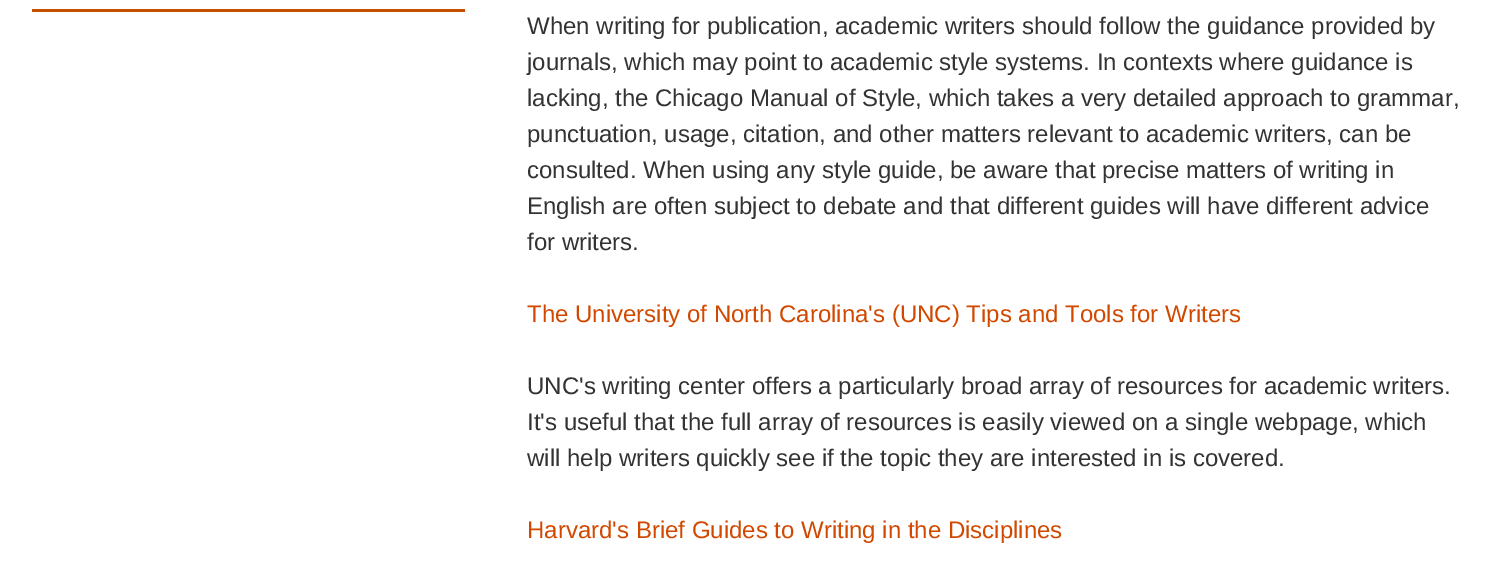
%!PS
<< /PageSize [1490 584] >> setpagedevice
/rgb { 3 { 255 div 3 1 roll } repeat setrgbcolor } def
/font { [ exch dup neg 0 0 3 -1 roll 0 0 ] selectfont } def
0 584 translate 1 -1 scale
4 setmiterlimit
255 255 255 rgb
0 0 1490 584 rectfill
199 80 0 rgb
32 9 433 3 rectfill
/LiberationSans-Regular 24 font
51 51 51 rgb
[
  [(When writing for publication, academic writers should follow the guidance provided by) 527 34]
  [(journals, which may point to academic style systems. In contexts where guidance is) 527 70]
  [(lacking, the Chicago Manual of Style, which takes a very detailed approach to grammar,) 527 106]
  [(punctuation, usage, citation, and other matters relevant to academic writers, can be) 527 142]
  [(consulted. When using any style guide, be aware that precise matters of writing in) 527 178]
  [(English are often subject to debate and that different guides will have different advice) 527 214]
  [(for writers.) 527 250]
] { aload pop moveto show } forall
209 73 0 rgb
527 322 moveto (The University of North Carolina's \(UNC\) Tips and Tools for Writers) show
51 51 51 rgb
[
  [(UNC's writing center offers a particularly broad array of resources for academic writers.) 527 394]
  [(It's useful that the full array of resources is easily viewed on a single webpage, which) 527 430]
  [(will help writers quickly see if the topic they are interested in is covered.) 527 466]
] { aload pop moveto show } forall
209 73 0 rgb
527 538 moveto (Harvard's Brief Guides to Writing in the Disciplines) show
showpage
